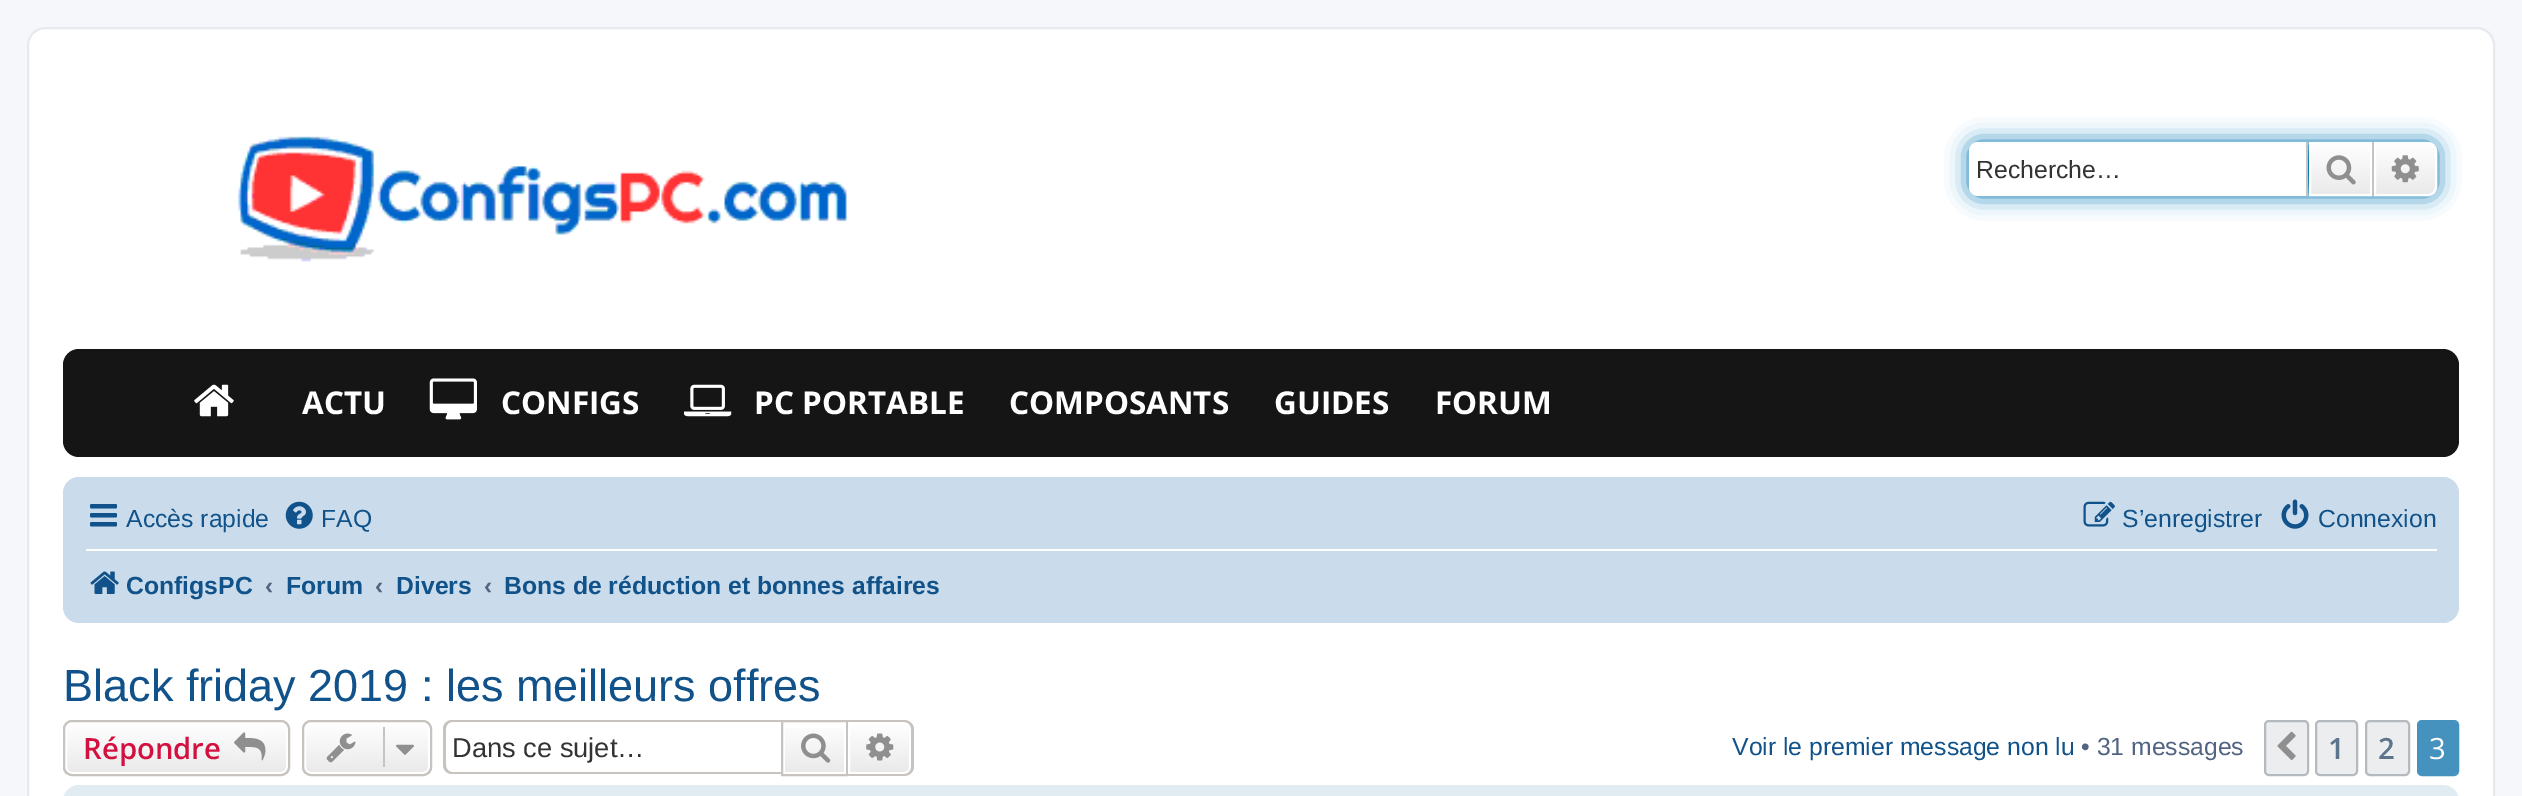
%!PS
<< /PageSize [2522 796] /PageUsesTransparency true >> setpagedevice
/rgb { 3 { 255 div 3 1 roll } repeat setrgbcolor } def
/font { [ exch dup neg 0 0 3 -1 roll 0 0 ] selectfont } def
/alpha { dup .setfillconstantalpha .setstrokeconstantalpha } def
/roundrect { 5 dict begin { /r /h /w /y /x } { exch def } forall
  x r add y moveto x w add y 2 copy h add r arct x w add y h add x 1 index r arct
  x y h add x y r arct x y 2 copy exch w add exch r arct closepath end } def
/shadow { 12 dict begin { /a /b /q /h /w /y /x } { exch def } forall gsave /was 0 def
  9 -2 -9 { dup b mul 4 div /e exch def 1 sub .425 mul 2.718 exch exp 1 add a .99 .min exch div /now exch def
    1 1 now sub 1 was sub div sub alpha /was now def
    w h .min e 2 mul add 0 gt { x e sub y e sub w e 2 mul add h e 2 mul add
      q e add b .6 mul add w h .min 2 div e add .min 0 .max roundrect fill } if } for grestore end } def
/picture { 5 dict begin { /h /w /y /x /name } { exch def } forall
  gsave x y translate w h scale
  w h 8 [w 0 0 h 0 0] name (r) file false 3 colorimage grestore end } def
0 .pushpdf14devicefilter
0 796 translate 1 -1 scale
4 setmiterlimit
245 247 250 rgb
0 0 2522 796 rectfill
255 255 255 rgb
28 28 2466 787 17 roundrect gsave fill grestore
230 233 237 rgb
2 setlinewidth
stroke
(img/1.rgb) 238 136 609 126 picture
0 117 176 rgb
1969 142 468 54 9 11 1 shadow
255 255 255 rgb
1978 142 moveto 2306 142 lineto 2306 196 lineto 1978 196 lineto 1973 196 1969 192 1969 187 curveto 1969 151 lineto 1969 146 1973 142 1978 142 curveto closepath fill
gsave 2311 144 moveto 2370 144 lineto 2370 194 lineto 2311 194 lineto closepath clip newpath
<< /ShadingType 2 /ColorSpace /DeviceRGB /Coords [2340 142 2340 196] /Extend [true true] /Function << /FunctionType 2 /Domain [0 1] /C0 [1 1 1] /C1 [0.914 0.914 0.914] /N 1 >> >> shfill grestore
2310 143 61 52 rectstroke
199 195 191 rgb
2372 142 2 54 rectfill
2306 142 2 54 rectfill
(img/2.rgb) 2326 155 30 30 picture
gsave 2375 143 moveto 2428 143 lineto 2432.5 143 2436 146.5 2436 151 curveto 2436 187 lineto 2436 191.5 2432.5 195 2428 195 curveto 2375 195 lineto closepath clip newpath
<< /ShadingType 2 /ColorSpace /DeviceRGB /Coords [2405 142 2405 196] /Extend [true true] /Function << /FunctionType 2 /Domain [0 1] /C0 [1 1 1] /C1 [0.914 0.914 0.914] /N 1 >> >> shfill grestore
255 255 255 rgb
2375 143 moveto 2428 143 lineto 2432.5 143 2436 146.5 2436 151 curveto 2436 187 lineto 2436 191.5 2432.5 195 2428 195 curveto 2375 195 lineto closepath stroke
(img/3.rgb) 2391 155 28 28 picture
21 21 21 rgb
63 349 2396 108 16 roundrect fill
(img/4.rgb) 194 384 40 33 picture
(img/5.rgb) 429 378 48 42 picture
(img/6.rgb) 684 384 48 33 picture
202 220 235 rgb
63 477 2396 146 16 roundrect fill
(img/7.rgb) 90 504 27 23 picture
(img/8.rgb) 285 501 28 28 picture
(img/9.rgb) 2083 501 32 26 picture
(img/10.rgb) 2281 499 28 30 picture
255 255 255 rgb
86 549 2351 2 rectfill
(img/11.rgb) 90 571 29 23 picture
gsave
63 720 227 56 9 roundrect clip newpath
gsave 63 722 moveto 290 722 lineto 290 774 lineto 63 774 lineto closepath clip newpath
<< /ShadingType 2 /ColorSpace /DeviceRGB /Coords [177 722 177 774] /Extend [true true] /Function << /FunctionType 2 /Domain [0 1] /C0 [1 1 1] /C1 [0.914 0.914 0.914] /N 1 >> >> shfill grestore
grestore
66 723 221 50 6 roundrect stroke
199 195 191 rgb
64 721 225 54 8 roundrect stroke
(img/12.rgb) 234 732 32 29 picture
gsave
302 720 130 56 9 roundrect clip newpath
gsave 302 722 moveto 432 722 lineto 432 774 lineto 302 774 lineto closepath clip newpath
<< /ShadingType 2 /ColorSpace /DeviceRGB /Coords [367 722 367 774] /Extend [true true] /Function << /FunctionType 2 /Domain [0 1] /C0 [1 1 1] /C1 [0.914 0.914 0.914] /N 1 >> >> shfill grestore
grestore
255 255 255 rgb
305 723 124 50 6 roundrect stroke
199 195 191 rgb
303 721 128 54 8 roundrect stroke
(img/13.rgb) 326 733 30 30 picture
383 727 2 40 rectfill
(img/14.rgb) 396 744 18 11 picture
452 720 moveto 781 720 lineto 781 774 lineto 452 774 lineto 447 774 443 770 443 765 curveto 443 729 lineto 443 724 447 720 452 720 curveto closepath 452 722 moveto 781 722 lineto 781 772 lineto 452 772 lineto 449 772 446 769 446 765 curveto 446 729 lineto 446 725 449 722 452 722 curveto closepath eofill
gsave 785 728 moveto 844 728 lineto 844 772 lineto 785 772 lineto closepath clip newpath
<< /ShadingType 2 /ColorSpace /DeviceRGB /Coords [815 722 815 774] /Extend [true true] /Function << /FunctionType 2 /Domain [0 1] /C0 [1 1 1] /C1 [0.914 0.914 0.914] /N 1 >> >> shfill grestore
782 721 65 54 rectstroke
(img/15.rgb) 801 733 30 30 picture
gsave 849 723 moveto 904 723 lineto 907.5 723 910 725.5 910 729 curveto 910 767 lineto 910 770.5 907.5 773 904 773 curveto 849 773 lineto closepath clip newpath
<< /ShadingType 2 /ColorSpace /DeviceRGB /Coords [880 722 880 774] /Extend [true true] /Function << /FunctionType 2 /Domain [0 1] /C0 [1 1 1] /C1 [0.914 0.914 0.914] /N 1 >> >> shfill grestore
255 255 255 rgb
849 723 moveto 904 723 lineto 907.5 723 910 725.5 910 729 curveto 910 767 lineto 910 770.5 907.5 773 904 773 curveto 849 773 lineto closepath stroke
199 195 191 rgb
848 720 moveto 904 720 lineto 909 720 914 724 914 729 curveto 914 767 lineto 914 772 909 776 904 776 curveto 848 776 lineto closepath 848 722 moveto 904 722 lineto 908 722 911 725 911 729 curveto 911 767 lineto 911 771 908 774 904 774 curveto 848 774 lineto closepath eofill
(img/16.rgb) 866 733 28 28 picture
236 237 238 rgb
2265 721 43 54 4 roundrect gsave fill grestore
180 186 192 rgb
stroke
(img/17.rgb) 2277 731 19 29 picture
236 237 238 rgb
2316 721 41 54 4 roundrect gsave fill grestore
180 186 192 rgb
stroke
236 237 238 rgb
2366 721 43 54 4 roundrect gsave fill grestore
180 186 192 rgb
stroke
70 146 191 rgb
2418 721 40 54 4 roundrect gsave fill grestore
stroke
225 235 242 rgb
63 785 2396 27 16 roundrect fill
/LiberationSans-Regular 24.75 font
51 51 51 rgb
1976 178 moveto (Recherche…) show
/OpenSans-Bold 31.5 font
255 255 255 rgb
[
  [(ACTU) 302 414]
  [(CONFIGS) 501 414]
  [(PC PORTABLE) 754 414]
  [(COMPOSANTS) 1009 414]
  [(GUIDES) 1274 414]
  [(FORUM) 1435 414]
] { aload pop moveto show } forall
/LiberationSans-Regular 24.75 font
16 82 137 rgb
[
  [(Accès rapide) 126 527]
  [(FAQ) 321 527]
  [(S’enregistrer) 2122 527]
  [(Connexion) 2318 527]
] { aload pop moveto show } forall
/LiberationSans-Bold 24.75 font
126 594 moveto (ConfigsPC) show
83 100 130 rgb
265 594 moveto (‹) show
16 82 137 rgb
286 594 moveto (Forum) show
83 100 130 rgb
375 594 moveto (‹) show
16 82 137 rgb
396 594 moveto (Divers) show
83 100 130 rgb
484 594 moveto (‹) show
16 82 137 rgb
504 594 moveto (Bons de réduction et bonnes affaires) show
/LiberationSans-Regular 45 font
63 701 moveto (Black friday 2019 : les meilleurs offres) show
/OpenSans-SemiBold 29.25 font
211 17 65 rgb
83 759 moveto (Répondre) show
/LiberationSans-Regular 27.25 font
51 51 51 rgb
452 757 moveto (Dans ce sujet…) show
/LiberationSans-Regular 24.75 font
16 82 137 rgb
1732 755 moveto (Voir le premier message non lu) show
83 100 130 rgb
2081 755 moveto (• 31 messages) show
/OpenSans-SemiBold 29.25 font
92 117 140 rgb
2328 759 moveto (1) show
2378 759 moveto (2) show
/OpenSans-Regular 29.25 font
255 255 255 rgb
2429 759 moveto (3) show
.poppdf14devicefilter showpage
